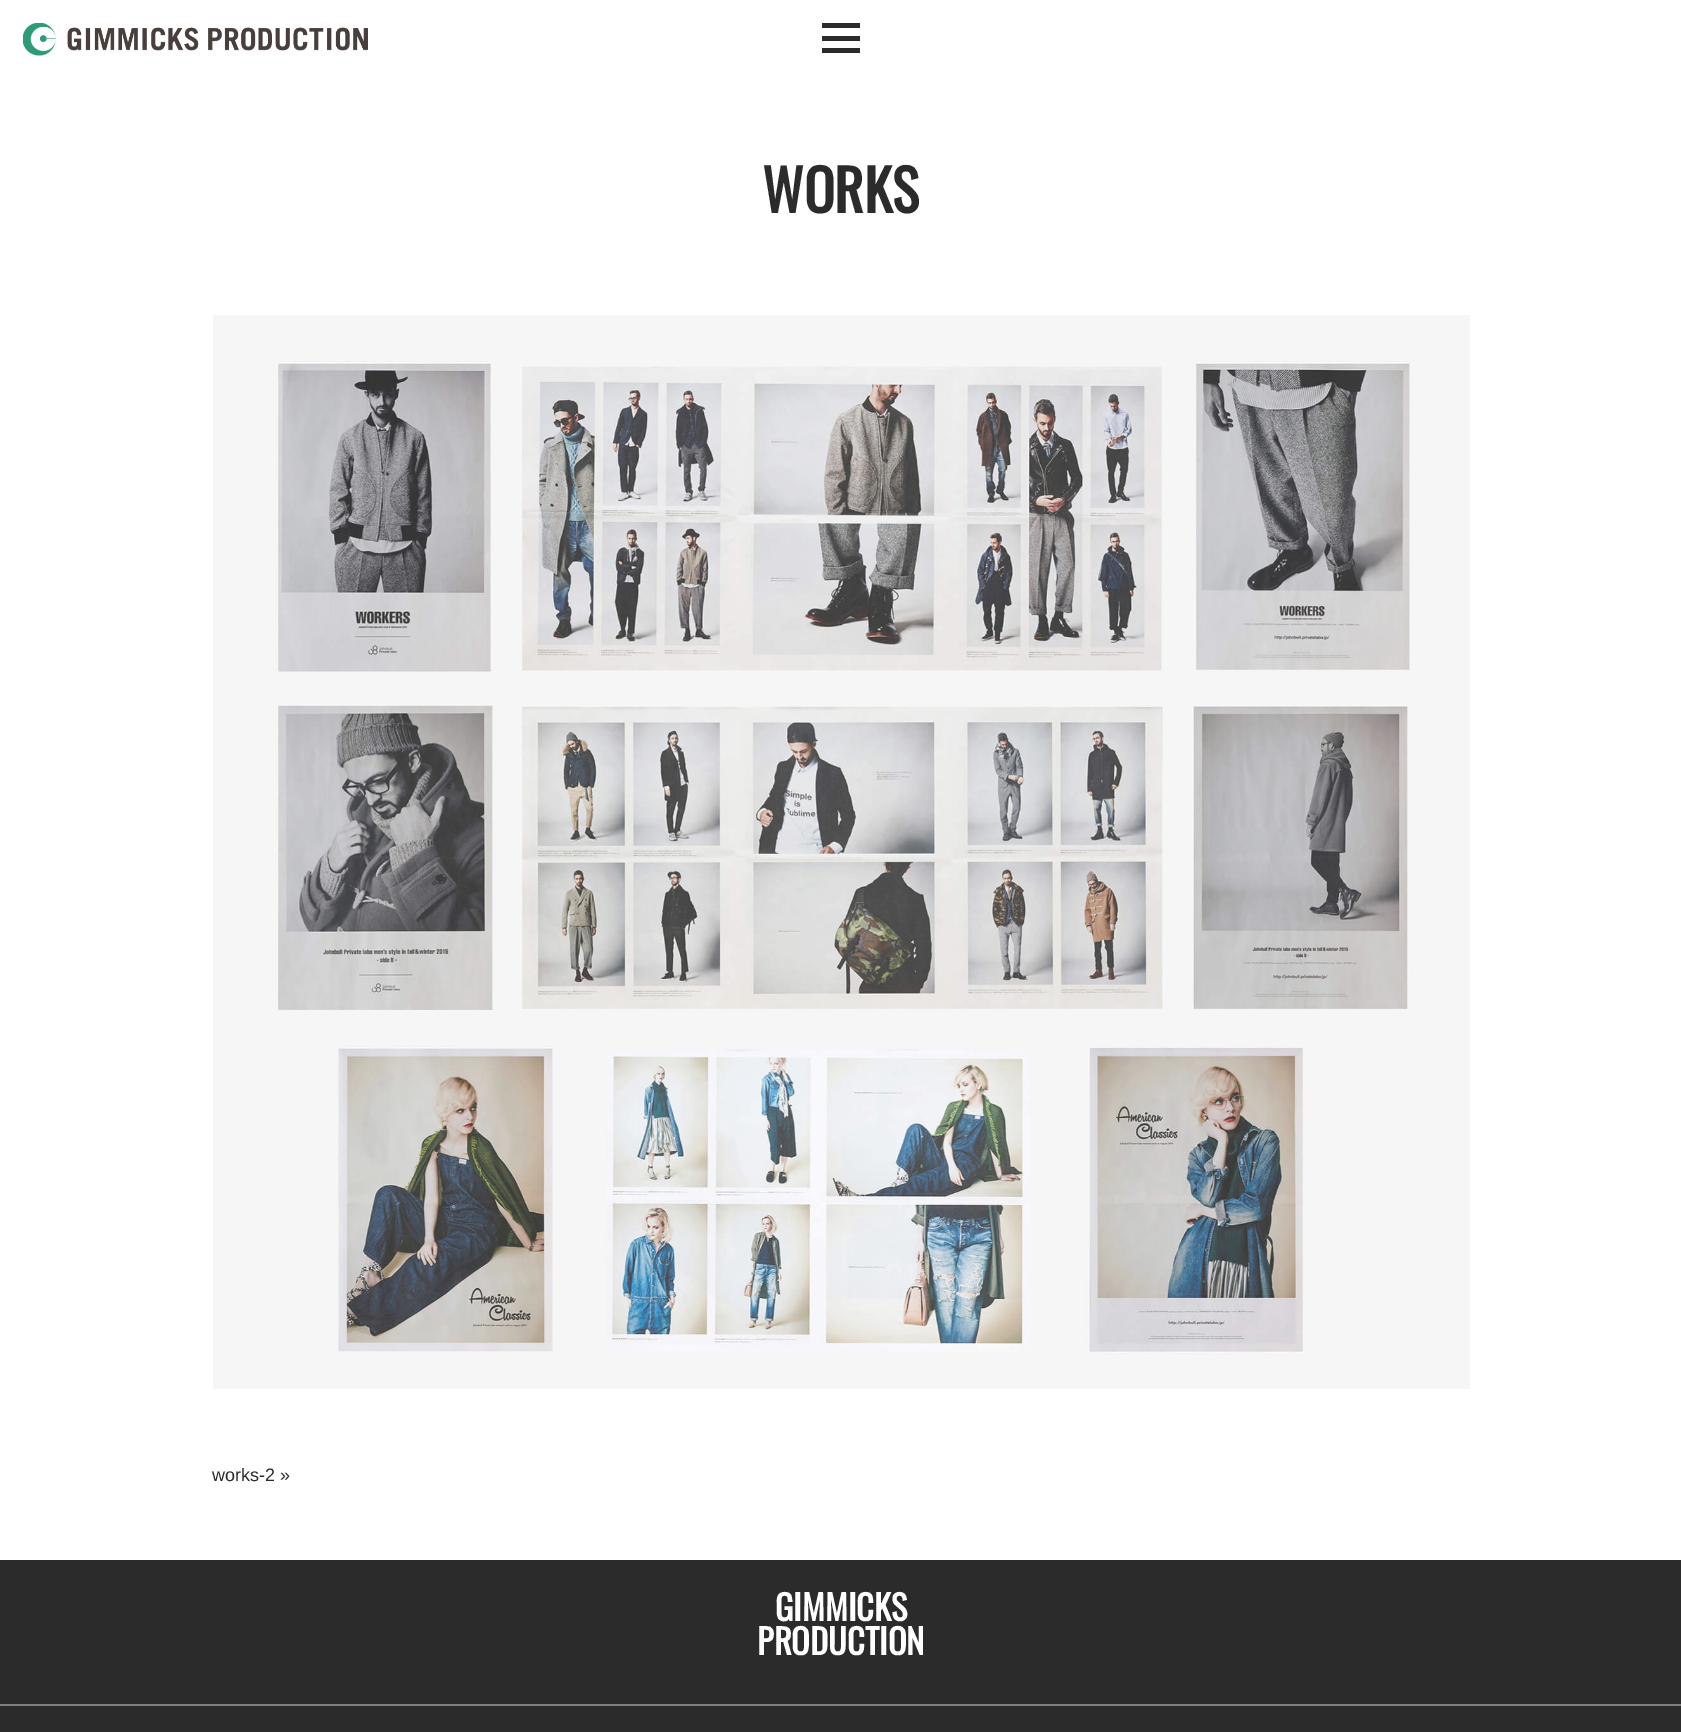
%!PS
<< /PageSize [1681 1732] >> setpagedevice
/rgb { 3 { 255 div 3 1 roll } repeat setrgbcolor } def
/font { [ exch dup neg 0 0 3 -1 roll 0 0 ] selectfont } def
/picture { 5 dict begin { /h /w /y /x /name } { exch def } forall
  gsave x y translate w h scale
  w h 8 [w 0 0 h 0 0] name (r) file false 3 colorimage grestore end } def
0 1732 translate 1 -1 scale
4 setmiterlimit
255 255 255 rgb
0 0 1681 1732 rectfill
(img/1.rgb) 23 23 345 33 picture
[
  [822 23 38 5 43 43 43]
  [822 36 38 5 43 43 43]
  [822 48 38 5 43 43 43]
] { aload pop rgb rectfill } forall
(img/2.rgb) 213 315 1257 1074 picture
0 1560 1681 172 rectfill
128 128 128 rgb
0 1704 1681 2 rectfill
/Oswald-Bold 57 font
43 43 43 rgb
762 213 moveto (WORKS) show
/LiberationSans-Regular 18 font
212 1481 moveto (works-2 ») show
/Oswald-Bold 34.5 font
255 255 255 rgb
775 1621 moveto (GIMMICKS) show
757 1655 moveto (PRODUCTION) show
showpage
